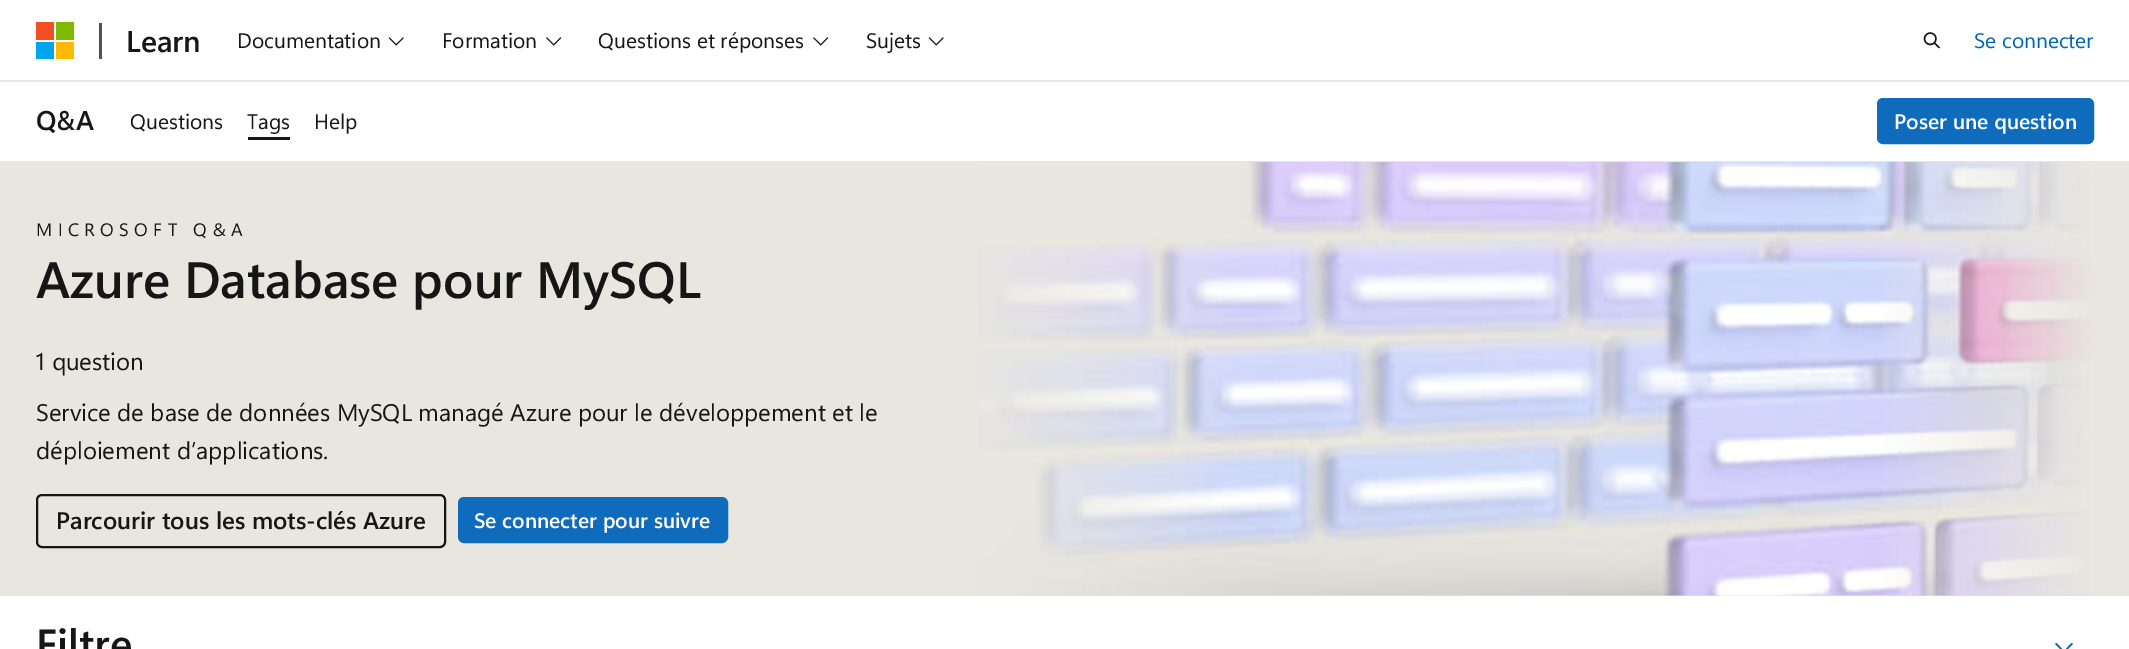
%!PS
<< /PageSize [2129 649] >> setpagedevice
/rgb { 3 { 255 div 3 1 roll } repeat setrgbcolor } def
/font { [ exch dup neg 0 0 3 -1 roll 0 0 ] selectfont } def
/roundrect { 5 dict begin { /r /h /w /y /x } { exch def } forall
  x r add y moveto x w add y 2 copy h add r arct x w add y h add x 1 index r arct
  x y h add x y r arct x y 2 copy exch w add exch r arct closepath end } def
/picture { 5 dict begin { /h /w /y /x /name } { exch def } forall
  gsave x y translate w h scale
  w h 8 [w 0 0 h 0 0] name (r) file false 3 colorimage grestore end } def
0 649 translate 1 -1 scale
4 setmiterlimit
255 255 255 rgb
0 0 2129 649 rectfill
[
  [0 80 2129 2 230 230 230]
  [36 22 18 18 242 80 34]
  [56 22 18 18 127 186 0]
  [36 42 18 17 0 164 239]
  [56 42 18 17 255 185 0]
  [99 23 3 36 80 80 80]
] { aload pop rgb rectfill } forall
(img/1.rgb) 388 37 16 9 picture
(img/2.rgb) 546 37 16 9 picture
(img/2.rgb) 813 37 16 9 picture
(img/1.rgb) 928 37 16 9 picture
(img/3.rgb) 1923 32 17 17 picture
230 230 230 rgb
0 161 2129 1 rectfill
22 22 22 rgb
248 137 42 3 rectfill
15 108 189 rgb
1878 99 215 44 5 roundrect gsave fill grestore
2 setlinewidth
stroke
232 230 223 rgb
0 162 2129 434 rectfill
22 22 22 rgb
37 495 408 52 5 roundrect stroke
15 108 189 rgb
459 498 268 44 5 roundrect gsave fill grestore
stroke
(img/4.rgb) 979 162 1115 434 picture
(img/5.rgb) 1883 162 211 434 picture
0 101 179 rgb
2064 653 moveto 2055 644 lineto 2056.5 643 lineto 2064 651 lineto 2071.5 643 lineto 2073 644 lineto closepath fill
/SegoeUI-SemiBold 30 font
22 22 22 rgb
126 52 moveto (Learn) show
/SegoeUI-Regular 21 font
[
  [(Documentation) 237 48]
  [(Formation) 442 48]
  [(Questions et réponses) 598 48]
  [(Sujets) 866 48]
] { aload pop moveto show } forall
0 101 179 rgb
1974 48 moveto (Se connecter) show
/SegoeUI-SemiBold 27 font
22 22 22 rgb
36 130 moveto (Q&A) show
/SegoeUI-Regular 21 font
[
  [(Questions) 130 129]
  [(Tags) 247 129]
  [(Help) 314 129]
] { aload pop moveto show } forall
/SegoeUI-SemiBold 21 font
255 255 255 rgb
1894 129 moveto (Poser une question) show
/SegoeUI-Regular 18 font
22 22 22 rgb
36 236 moveto 5.4 0 (MICROSOFT Q&A) ashow
/SegoeUI-SemiBold 51 font
36 298 moveto (Azure Database pour MySQL) show
/SegoeUI-Regular 24 font
[
  [(1 question) 36 370]
  [(Service de base de données MySQL managé Azure pour le développement et le) 36 421]
  [(déploiement d’applications.) 36 459]
] { aload pop moveto show } forall
/SegoeUI-SemiBold 24 font
56 529 moveto (Parcourir tous les mots-clés Azure) show
/SegoeUI-SemiBold 21 font
255 255 255 rgb
474 528 moveto (Se connecter pour suivre) show
/SegoeUI-SemiBold 42 font
22 22 22 rgb
36 659 moveto (Filtre) show
showpage
